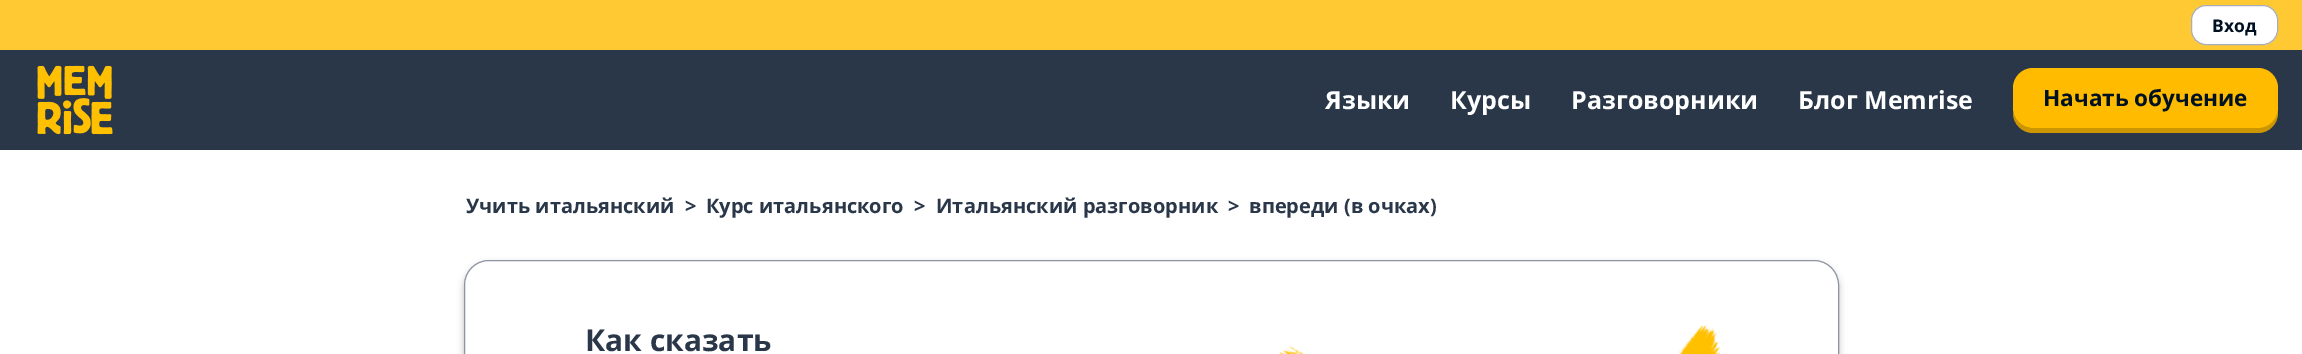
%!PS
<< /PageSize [2302 354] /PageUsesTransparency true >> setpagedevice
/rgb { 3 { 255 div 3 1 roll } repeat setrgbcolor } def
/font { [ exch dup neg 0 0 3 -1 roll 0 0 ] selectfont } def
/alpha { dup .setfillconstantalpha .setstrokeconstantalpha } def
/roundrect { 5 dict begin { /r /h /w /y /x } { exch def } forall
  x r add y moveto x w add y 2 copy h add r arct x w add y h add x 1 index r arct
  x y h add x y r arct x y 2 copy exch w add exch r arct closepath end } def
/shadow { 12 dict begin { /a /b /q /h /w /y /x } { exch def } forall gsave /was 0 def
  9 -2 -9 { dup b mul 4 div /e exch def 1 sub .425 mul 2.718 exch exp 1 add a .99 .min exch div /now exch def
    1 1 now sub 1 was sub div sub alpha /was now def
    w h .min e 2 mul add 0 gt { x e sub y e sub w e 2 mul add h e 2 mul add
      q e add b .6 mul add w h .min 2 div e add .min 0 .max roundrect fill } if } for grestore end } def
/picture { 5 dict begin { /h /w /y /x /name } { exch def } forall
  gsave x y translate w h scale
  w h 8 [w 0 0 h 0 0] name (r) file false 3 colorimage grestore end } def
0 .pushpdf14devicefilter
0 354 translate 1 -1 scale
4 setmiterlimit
255 255 255 rgb
0 0 2302 354 rectfill
255 201 51 rgb
0 0 2302 50 rectfill
255 255 255 rgb
2191.5 5.5 86 39 14.5 roundrect gsave fill grestore
168 174 186 rgb
stroke
41 55 73 rgb
0 50 2302 100 rectfill
(img/1.rgb) 37 65 76 70 picture
204 150 0 rgb
2013 112 moveto 2013 113 lineto 2013 124 2022 133 2033 133 curveto 2258 133 lineto 2269 133 2278 124 2278 113 curveto 2278 93 lineto 2278 89 lineto 2278 108 lineto 2278 119 2269 128 2258 128 curveto 2032 128 lineto 2023 128 2015 121 2013 112 curveto closepath fill
255 187 0 rgb
2013 68 265 60 20 roundrect fill
0 0 0 rgb
464 263 1375 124 25 2.5 0.12 shadow
464 264 1375 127 25 4 0.15 shadow
255 255 255 rgb
464.5 260.5 1374 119 24.5 roundrect gsave fill grestore
142 148 160 rgb
stroke
(img/2.rgb) 1279 346 32 8 picture
(img/3.rgb) 1678 322 43 32 picture
/OpenSans-Bold 17.5 font
0 17 34 rgb
2212 32 moveto (Вход) show
/OpenSans-Bold 25 font
255 255 255 rgb
[
  [(Языки) 1325 109]
  [(Курсы) 1450 109]
  [(Разговорники) 1571 109]
  [(Блог Memrise) 1798 109]
] { aload pop moveto show } forall
/OpenSans-Bold 22.5 font
0 17 34 rgb
2043 106 moveto (Начать обучение) show
/OpenSans-Bold 20 font
41 55 73 rgb
[
  [(Учить итальянский) 466 213]
  [(>) 685 213]
  [(Курс итальянского) 706 213]
  [(>) 914 213]
  [(Итальянский разговорник) 936 213]
  [(>) 1228 213]
  [(впереди \(в очках\)) 1249 213]
] { aload pop moveto show } forall
/OpenSans-Bold 30 font
585 351 moveto (Как сказать) show
.poppdf14devicefilter showpage
